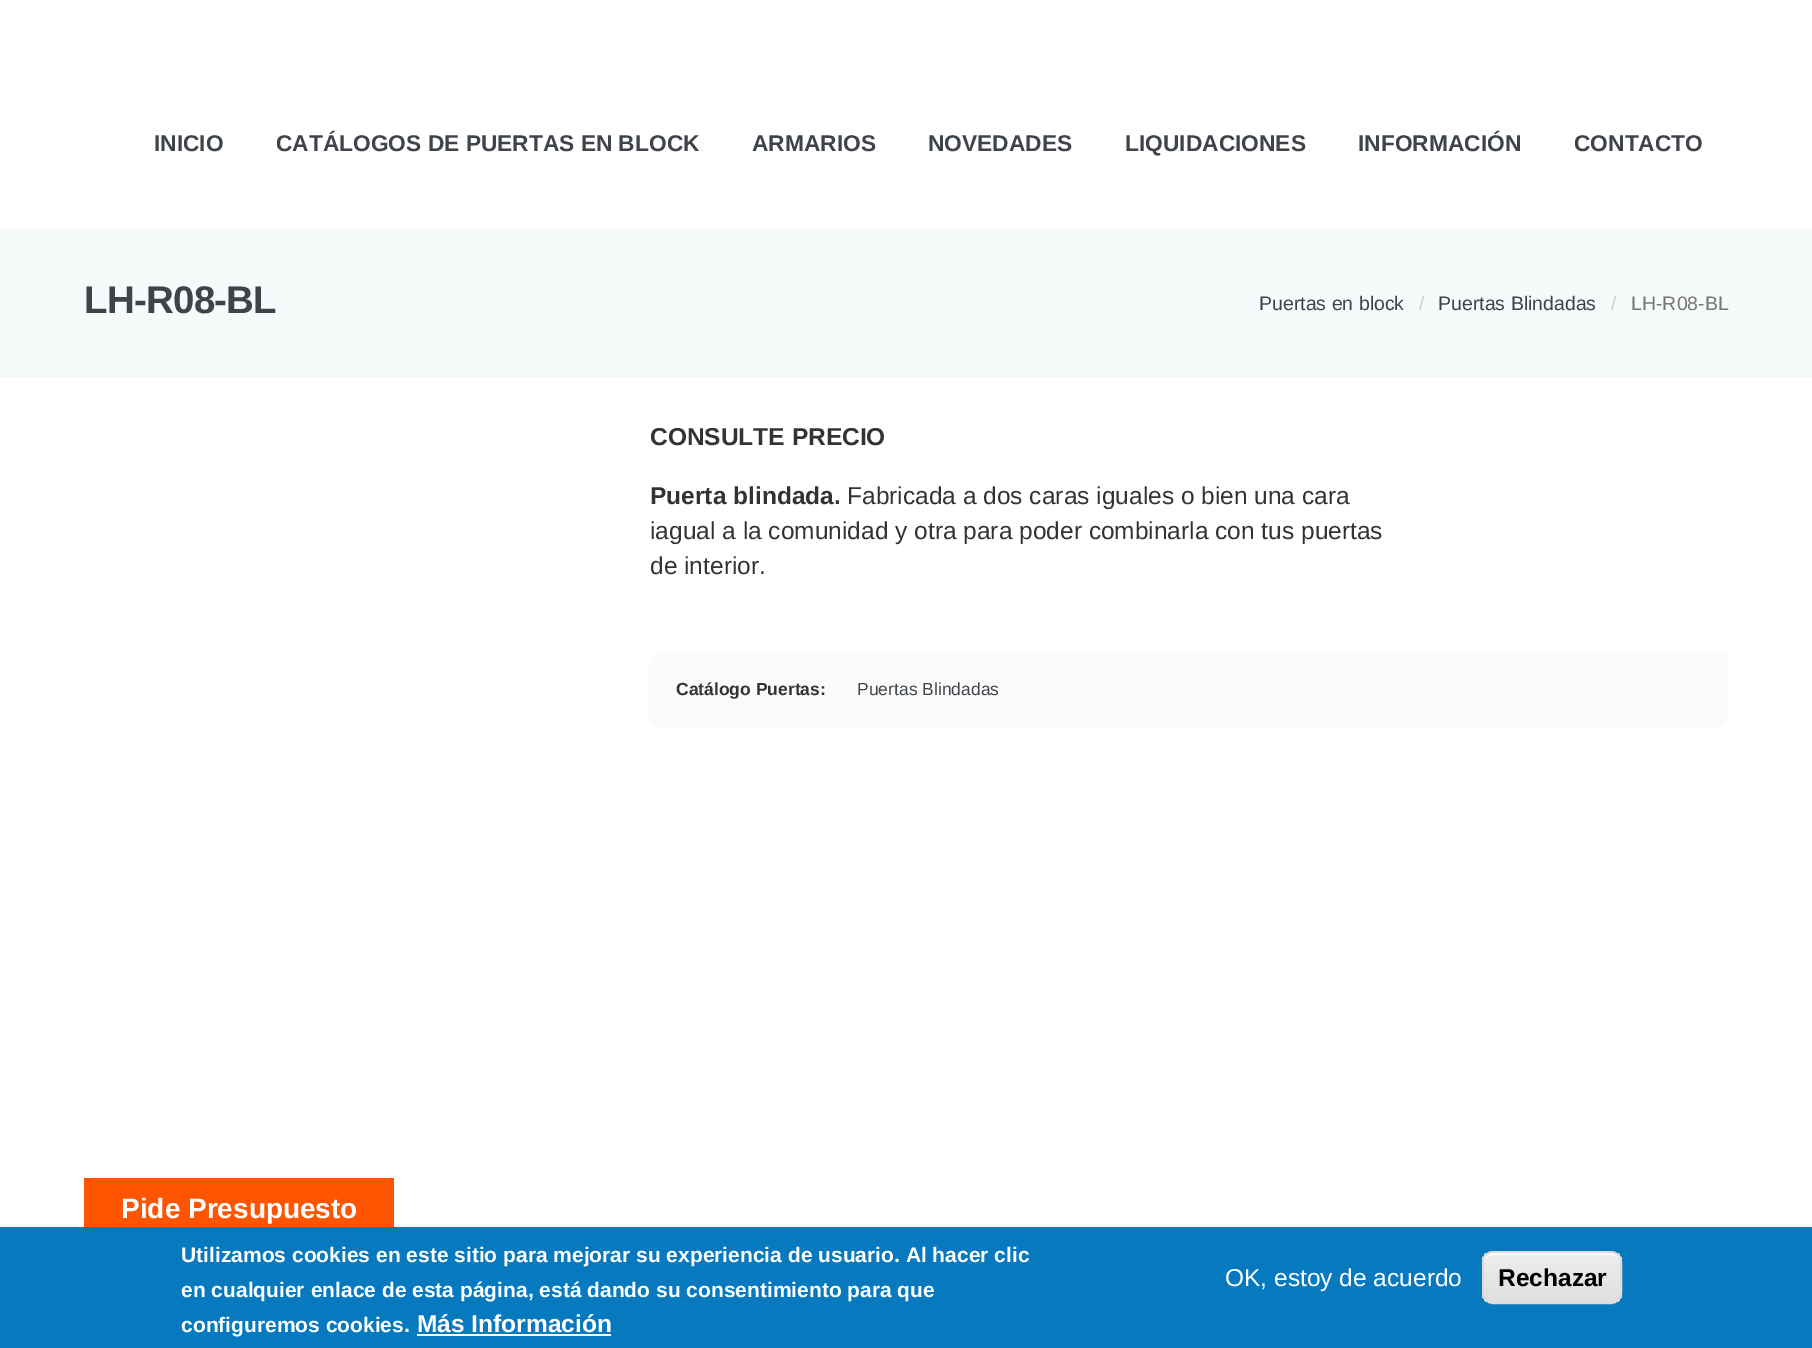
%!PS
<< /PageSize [1812 1348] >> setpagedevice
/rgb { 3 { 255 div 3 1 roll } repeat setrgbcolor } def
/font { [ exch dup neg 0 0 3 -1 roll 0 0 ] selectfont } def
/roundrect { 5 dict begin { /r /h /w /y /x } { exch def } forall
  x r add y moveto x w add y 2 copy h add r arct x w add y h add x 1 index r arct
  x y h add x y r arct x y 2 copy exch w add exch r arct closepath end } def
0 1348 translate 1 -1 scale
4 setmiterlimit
255 255 255 rgb
0 0 1812 1348 rectfill
[
  [0 231 1812 144 247 250 251]
  [0 229 1812 2 244 248 249]
  [0 375 1812 2 244 248 249]
] { aload pop rgb rectfill } forall
251 251 251 rgb
649 651 1080 77 14 roundrect fill
[
  [84 1178 310 49 255 84 0]
  [0 1227 1812 121 7 121 191]
  [417 1334 194 2 255 255 255]
] { aload pop rgb rectfill } forall
gsave
1482 1251 140 53 11 roundrect clip newpath
gsave 1482 1253 moveto 1622 1253 lineto 1622 1302 lineto 1482 1302 lineto closepath clip newpath
<< /ShadingType 2 /ColorSpace /DeviceRGB /Coords [1552 1253 1552 1302] /Extend [true true] /Function << /FunctionType 3 /Domain [0 1] /Functions [<< /FunctionType 2 /Domain [0 1] /C0 [0.929 0.929 0.929] /C1 [0.929 0.929 0.929] /N 1 >> << /FunctionType 2 /Domain [0 1] /C0 [0.929 0.929 0.929] /C1 [0.875 0.875 0.875] /N 1 >>] /Bounds [0.05] /Encode [0 1 0 1] >> >> shfill grestore
grestore
1493 1255 moveto 1612 1255 lineto 1622 1255 1620 1268 1620 1274 curveto 1620 1298 lineto 1621 1296 1621 1295 1621 1293 curveto 1621 1262 lineto 1621 1257 1617 1253 1612 1253 curveto 1493 1253 lineto 1488 1253 1484 1257 1484 1262 curveto 1484 1264 lineto 1484 1259 1488 1255 1493 1255 curveto closepath fill
220 220 220 rgb
2 setlinewidth
1483 1252 138 51 10 roundrect stroke
/LiberationSans-Bold 22.75 font
63 68 74 rgb
[
  [(INICIO) 154 151]
  [(CATÁLOGOS DE PUERTAS EN BLOCK) 276 151]
  [(ARMARIOS) 752 151]
  [(NOVEDADES) 928 151]
  [(LIQUIDACIONES) 1125 151]
  [(INFORMACIÓN) 1358 151]
  [(CONTACTO) 1574 151]
] { aload pop moveto show } forall
/LiberationSans-Bold 38.5 font
84 313 moveto -0.75 0 (LH-R08-BL) ashow
/LiberationSans-Regular 19.5 font
1259 310 moveto (Puertas en block) show
204 204 204 rgb
1419 310 moveto (/) show
63 68 74 rgb
1438 310 moveto (Puertas Blindadas) show
204 204 204 rgb
1611 310 moveto (/) show
119 119 119 rgb
1631 310 moveto (LH-R08-BL) show
/LiberationSans-Bold 24.5 font
51 51 51 rgb
650 445 moveto (CONSULTE PRECIO) show
650 504 moveto (Puerta blindada.) show
/LiberationSans-Regular 24.5 font
[
  [(Fabricada a dos caras iguales o bien una cara) 847 504]
  [(iagual a la comunidad y otra para poder combinarla con tus puertas) 650 539]
  [(de interior.) 650 574]
] { aload pop moveto show } forall
/LiberationSans-Bold 17.5 font
676 695 moveto (Catálogo Puertas:) show
/LiberationSans-Regular 17.5 font
63 68 74 rgb
857 695 moveto (Puertas Blindadas) show
/LiberationSans-Bold 28 font
255 255 255 rgb
121 1218 moveto (Pide Presupuesto) show
/LiberationSans-Bold 21 font
[
  [(Utilizamos cookies en este sitio para mejorar su experiencia de usuario. Al hacer clic) 181 1262]
  [(en cualquier enlace de esta página, está dando su consentimiento para que) 181 1297]
  [(configuremos cookies.) 181 1332]
] { aload pop moveto show } forall
/LiberationSans-Bold 24.5 font
417 1332 moveto (Más Información) show
/LiberationSans-Regular 24.5 font
1225 1286 moveto (OK, estoy de acuerdo) show
/LiberationSans-Bold 24.5 font
0 0 0 rgb
1498 1286 moveto (Rechazar) show
showpage
